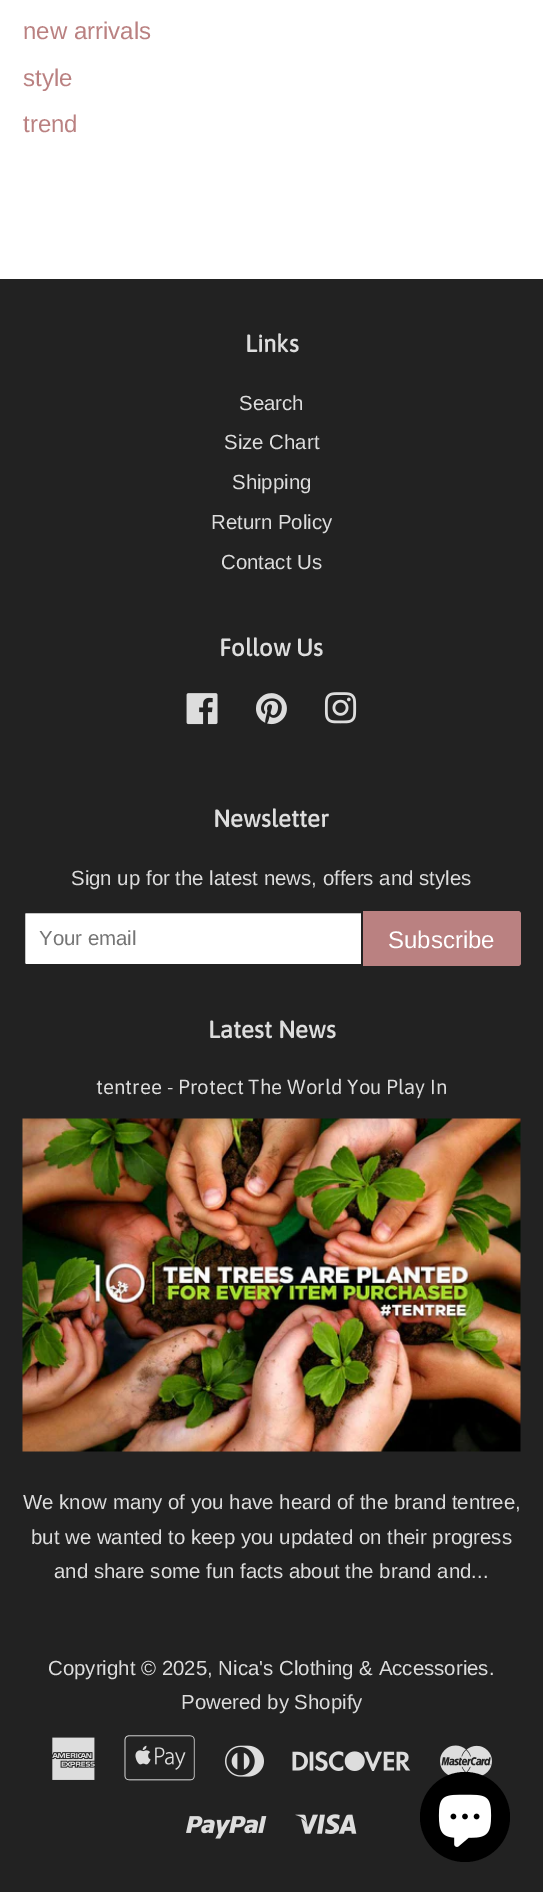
%!PS
<< /PageSize [543 1892] >> setpagedevice
/rgb { 3 { 255 div 3 1 roll } repeat setrgbcolor } def
/font { [ exch dup neg 0 0 3 -1 roll 0 0 ] selectfont } def
/circle { newpath 0 360 arc closepath } def
/picture { 5 dict begin { /h /w /y /x /name } { exch def } forall
  gsave x y translate w h scale
  w h 8 [w 0 0 h 0 0] name (r) file false 3 colorimage grestore end } def
0 1892 translate 1 -1 scale
4 setmiterlimit
255 255 255 rgb
0 0 543 1892 rectfill
34 34 34 rgb
0 279 543 1613 rectfill
(img/1.rgb) 186 693 32 32 picture
(img/2.rgb) 256 693 31 32 picture
(img/3.rgb) 324 692 33 32 picture
255 255 255 rgb
26 912 moveto 362 912 lineto 362 965 lineto 26 965 lineto 25 965 24 964 24 963 curveto 24 914 lineto 24 913 25 912 26 912 curveto closepath gsave fill grestore
34 34 34 rgb
2 setlinewidth
stroke
186 129 129 rgb
363 911 moveto 518 911 lineto 519.5 911 521 912.5 521 914 curveto 521 963 lineto 521 964.5 519.5 966 518 966 curveto 363 966 lineto closepath fill
(img/4.rgb) 22 1118 499 334 picture
(img/5.rgb) 52 1737 43 43 picture
(img/6.rgb) 124 1735 71 46 picture
(img/7.rgb) 225 1745 39 32 picture
(img/8.rgb) 292 1751 119 20 picture
(img/9.rgb) 440 1745 52 31 picture
(img/10.rgb) 186 1816 81 23 picture
(img/11.rgb) 295 1814 62 20 picture
0 0 0 rgb
465 1817 45 circle fill
(img/12.rgb) 438 1794 54 53 picture
/LiberationSans-Regular 24 font
186 129 129 rgb
[
  [(new arrivals) 23 39]
  [(style) 23 86]
  [(trend) 23 132]
] { aload pop moveto show } forall
/Asap-Bold 24 font
221 221 221 rgb
245 352 moveto (Links) show
/LiberationSans-Regular 20.4 font
[
  [(Search) 239 410]
  [(Size Chart) 224 449]
  [(Shipping) 232 489]
  [(Return Policy) 211 529]
  [(Contact Us) 221 569]
] { aload pop moveto show } forall
/Asap-Bold 24 font
219 656 moveto (Follow Us) show
213 827 moveto (Newsletter) show
/LiberationSans-Regular 20.4 font
71 885 moveto (Sign up for the latest news, offers and styles) show
117 117 117 rgb
39 945 moveto (Your email) show
/LiberationSans-Regular 24 font
255 255 255 rgb
388 948 moveto (Subscribe) show
/Asap-Bold 24 font
221 221 221 rgb
208 1038 moveto (Latest News) show
/Asap-Regular 20.4 font
96 1094 moveto (tentree - Protect The World You Play In) show
/LiberationSans-Regular 20.4 font
[
  [(We know many of you have heard of the brand tentree,) 23 1509]
  [(but we wanted to keep you updated on their progress) 31 1544]
  [(and share some fun facts about the brand and...) 54 1578]
  [(Copyright © 2025, Nica's Clothing & Accessories.) 48 1675]
  [(Powered by Shopify) 181 1709]
] { aload pop moveto show } forall
showpage
